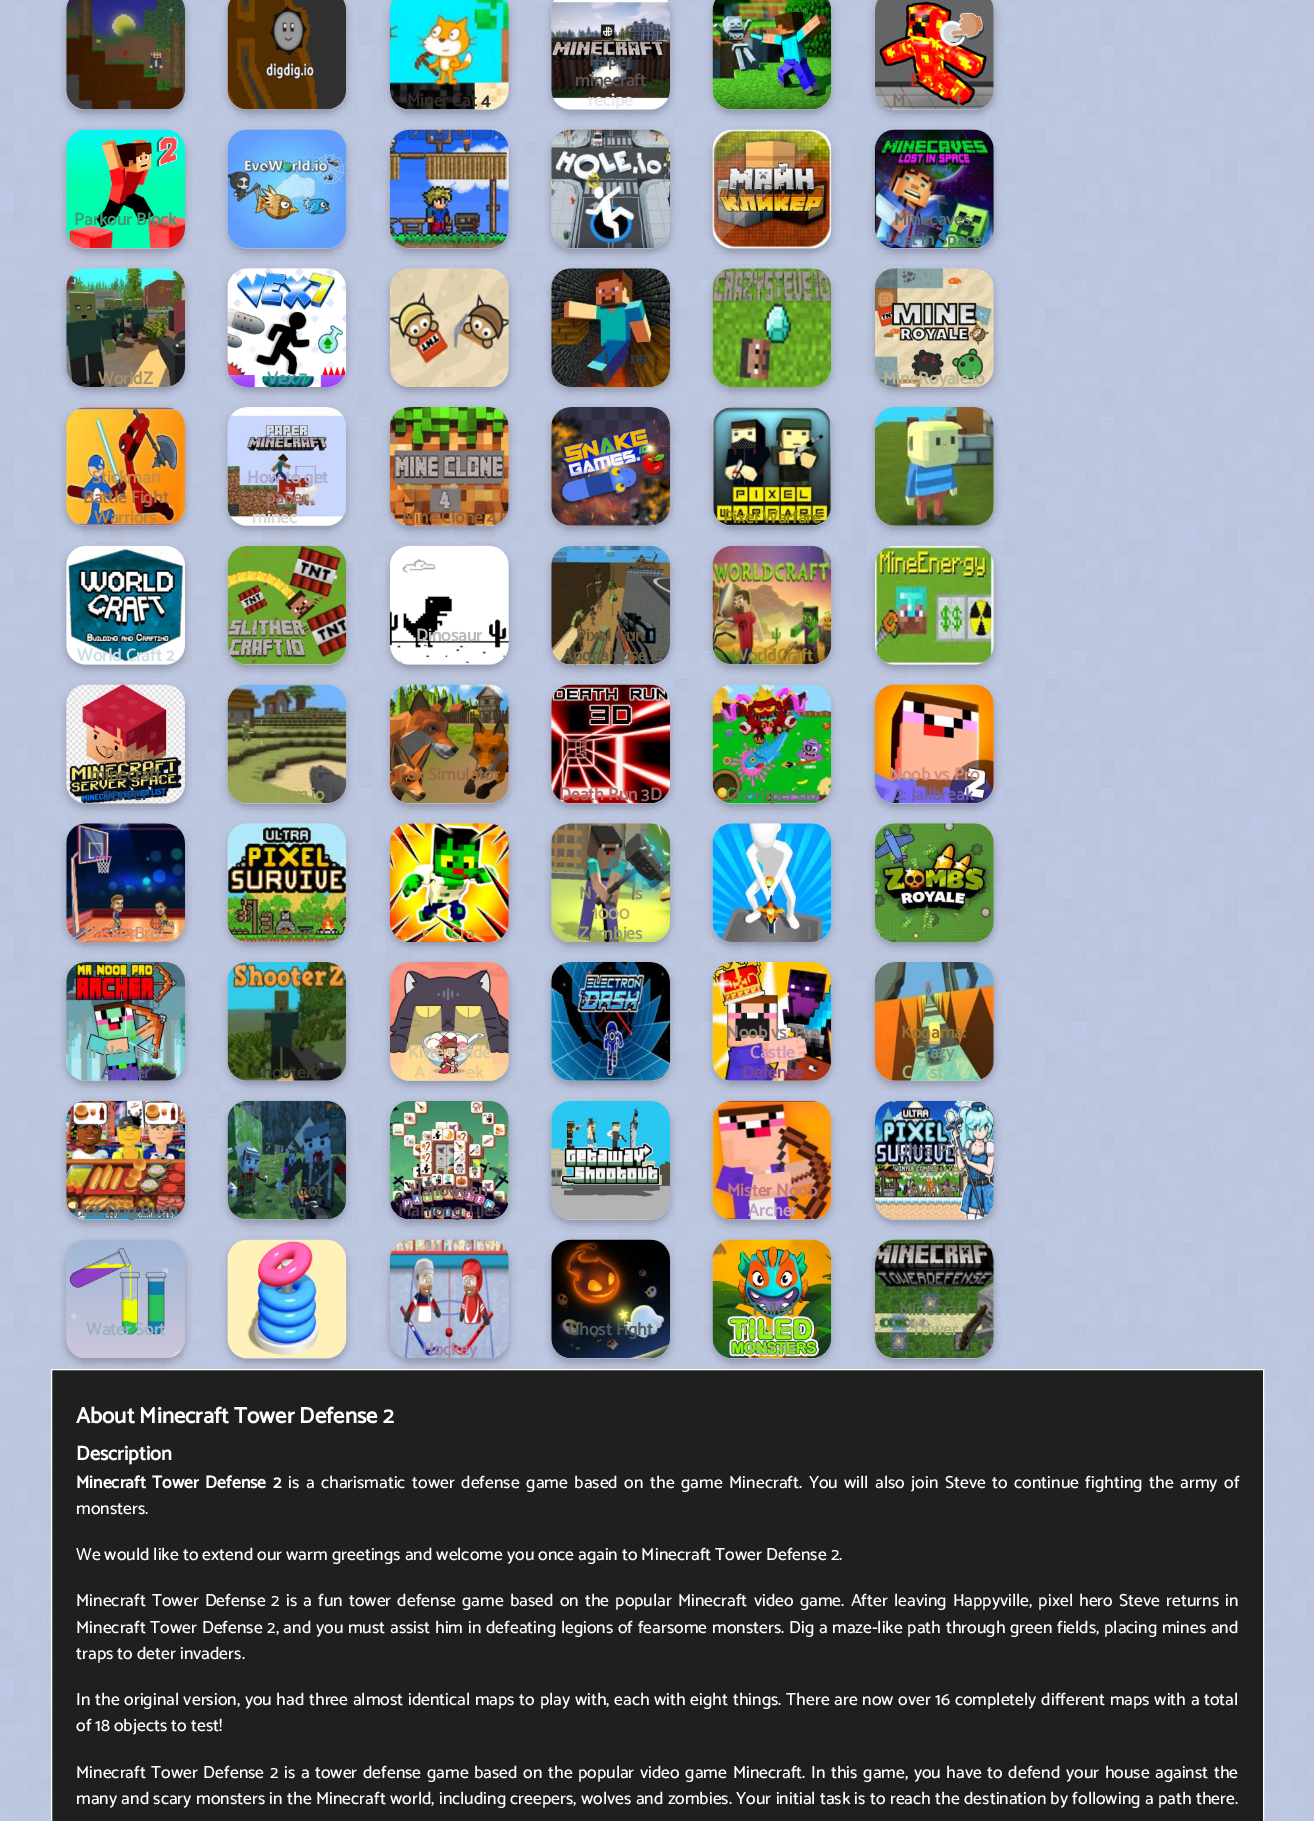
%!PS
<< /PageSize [1314 1821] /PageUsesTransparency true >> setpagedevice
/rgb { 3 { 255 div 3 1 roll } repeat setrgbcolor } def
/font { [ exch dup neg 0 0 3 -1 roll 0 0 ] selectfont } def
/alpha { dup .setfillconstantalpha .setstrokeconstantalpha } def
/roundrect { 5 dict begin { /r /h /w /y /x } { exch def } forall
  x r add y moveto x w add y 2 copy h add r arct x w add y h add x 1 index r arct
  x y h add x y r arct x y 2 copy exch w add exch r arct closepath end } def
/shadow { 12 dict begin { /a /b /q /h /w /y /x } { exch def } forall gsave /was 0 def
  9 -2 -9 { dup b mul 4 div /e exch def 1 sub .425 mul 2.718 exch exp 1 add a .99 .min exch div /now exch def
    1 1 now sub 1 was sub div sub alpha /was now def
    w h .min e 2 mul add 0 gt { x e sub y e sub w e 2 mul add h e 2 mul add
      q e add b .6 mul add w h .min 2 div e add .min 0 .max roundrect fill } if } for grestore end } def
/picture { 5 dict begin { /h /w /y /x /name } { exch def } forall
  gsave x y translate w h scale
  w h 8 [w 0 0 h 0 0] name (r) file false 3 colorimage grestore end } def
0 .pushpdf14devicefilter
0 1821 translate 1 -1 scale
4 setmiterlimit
195 209 242 rgb
0 0 1314 1821 rectfill
(img/1.rgb) 0 0 1314 1821 picture
0 0 0 rgb
66 -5 119 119 20 4 0.24 shadow
(img/2.rgb) 66 0 119 110 picture
228 -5 118 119 20 4 0.24 shadow
(img/3.rgb) 227 0 120 110 picture
390 -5 119 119 20 4 0.24 shadow
(img/4.rgb) 390 0 119 110 picture
551 -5 119 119 20 4 0.24 shadow
(img/5.rgb) 551 0 119 110 picture
713 -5 118 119 20 4 0.24 shadow
(img/6.rgb) 712 0 120 110 picture
875 -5 119 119 20 4 0.24 shadow
(img/7.rgb) 875 0 119 110 picture
66 134 119 119 20 4 0.24 shadow
(img/8.rgb) 66 129 119 120 picture
228 134 118 119 20 4 0.24 shadow
(img/9.rgb) 227 129 120 120 picture
390 134 119 119 20 4 0.24 shadow
(img/10.rgb) 390 129 119 120 picture
551 134 119 119 20 4 0.24 shadow
(img/11.rgb) 551 129 119 120 picture
713 134 118 119 20 4 0.24 shadow
(img/12.rgb) 712 129 120 120 picture
875 134 119 119 20 4 0.24 shadow
(img/13.rgb) 875 129 119 120 picture
390 273 119 118 20 4 0.24 shadow
(img/14.rgb) 390 268 119 119 picture
551 273 119 118 20 4 0.24 shadow
(img/15.rgb) 551 268 119 119 picture
713 273 118 118 20 4 0.24 shadow
(img/16.rgb) 712 268 120 119 picture
66 273 119 118 20 4 0.24 shadow
(img/17.rgb) 66 268 119 119 picture
228 273 118 118 20 4 0.24 shadow
(img/18.rgb) 227 268 120 119 picture
875 273 119 118 20 4 0.24 shadow
(img/19.rgb) 875 268 119 119 picture
66 411 119 119 20 4 0.24 shadow
(img/20.rgb) 66 407 119 119 picture
228 411 118 119 20 4 0.24 shadow
(img/21.rgb) 227 407 119 119 picture
390 411 119 119 20 4 0.24 shadow
(img/22.rgb) 390 407 119 119 picture
551 411 119 119 20 4 0.24 shadow
(img/23.rgb) 551 407 119 119 picture
713 411 118 119 20 4 0.24 shadow
(img/24.rgb) 712 407 120 119 picture
875 411 119 119 20 4 0.24 shadow
(img/25.rgb) 875 407 119 119 picture
66 550 119 119 20 4 0.24 shadow
(img/26.rgb) 66 545 119 120 picture
228 550 118 119 20 4 0.24 shadow
(img/27.rgb) 227 545 120 120 picture
390 550 119 119 20 4 0.24 shadow
(img/28.rgb) 390 545 119 120 picture
551 550 119 119 20 4 0.24 shadow
(img/29.rgb) 551 545 119 120 picture
713 550 118 119 20 4 0.24 shadow
(img/30.rgb) 712 545 120 120 picture
875 550 119 119 20 4 0.24 shadow
(img/31.rgb) 875 545 119 120 picture
66 689 119 119 20 4 0.24 shadow
(img/32.rgb) 66 684 119 120 picture
228 689 118 119 20 4 0.24 shadow
(img/33.rgb) 227 684 120 120 picture
390 689 119 119 20 4 0.24 shadow
(img/34.rgb) 390 684 119 120 picture
551 689 119 119 20 4 0.24 shadow
(img/35.rgb) 551 684 119 120 picture
713 689 118 119 20 4 0.24 shadow
(img/36.rgb) 712 684 120 120 picture
875 689 119 119 20 4 0.24 shadow
(img/37.rgb) 875 684 119 120 picture
66 828 119 118 20 4 0.24 shadow
(img/38.rgb) 66 823 119 119 picture
228 828 118 118 20 4 0.24 shadow
(img/39.rgb) 227 823 120 119 picture
390 828 119 118 20 4 0.24 shadow
(img/40.rgb) 390 823 119 119 picture
551 828 119 118 20 4 0.24 shadow
(img/41.rgb) 551 823 119 119 picture
713 828 118 118 20 4 0.24 shadow
(img/42.rgb) 712 823 120 119 picture
875 828 119 118 20 4 0.24 shadow
(img/43.rgb) 875 823 119 119 picture
66 966 119 119 20 4 0.24 shadow
(img/44.rgb) 66 962 119 119 picture
228 966 118 119 20 4 0.24 shadow
(img/45.rgb) 227 962 120 119 picture
390 966 119 119 20 4 0.24 shadow
(img/46.rgb) 390 962 119 119 picture
551 966 119 119 20 4 0.24 shadow
(img/47.rgb) 551 962 119 119 picture
713 966 118 119 20 4 0.24 shadow
(img/48.rgb) 712 962 120 119 picture
875 966 119 119 20 4 0.24 shadow
(img/49.rgb) 875 962 119 119 picture
551 1105 119 119 20 4 0.24 shadow
(img/50.rgb) 551 1100 119 120 picture
875 1105 119 119 20 4 0.24 shadow
(img/51.rgb) 875 1100 119 120 picture
66 1105 119 119 20 4 0.24 shadow
(img/52.rgb) 66 1100 119 120 picture
228 1105 118 119 20 4 0.24 shadow
(img/53.rgb) 227 1100 120 120 picture
390 1105 119 119 20 4 0.24 shadow
(img/54.rgb) 390 1100 119 120 picture
713 1105 118 119 20 4 0.24 shadow
(img/55.rgb) 712 1100 120 120 picture
66 1244 119 119 20 4 0.24 shadow
(img/56.rgb) 66 1239 119 119 picture
228 1244 118 119 20 4 0.24 shadow
(img/57.rgb) 227 1239 120 120 picture
551 1244 119 119 20 4 0.24 shadow
(img/58.rgb) 551 1239 119 120 picture
713 1244 118 119 20 4 0.24 shadow
(img/59.rgb) 712 1239 120 120 picture
875 1244 119 119 20 4 0.24 shadow
(img/60.rgb) 875 1239 119 120 picture
390 1244 119 119 20 4 0.24 shadow
(img/61.rgb) 390 1239 119 119 picture
31 31 31 rgb
51.5 1369.5 moveto 1263.5 1369.5 lineto 1263.5 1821.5 lineto 51.5 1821.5 lineto closepath gsave fill grestore
255 255 255 rgb
stroke
/Catamaran-Bold 17.5 font
51 48 43 rgb
407 106 moveto (Miner Cat 4) show
74 78 84 rgb
589 66 moveto (Paper) show
89 81 78 rgb
575 86 moveto (minecraft) show
233 231 231 rgb
588 106 moveto (recipe) show
205 49 19 rgb
910 86 moveto (E) show
131 109 105 rgb
892 106 moveto (M) show
956 106 moveto (t) show
58 159 116 rgb
74 225 moveto (Parkour Block) show
58 131 68 rgb
408 245 moveto (Scratcharia) show
96 108 110 rgb
894 225 moveto (Minecaves:) show
83 122 122 rgb
885 245 moveto (Lost in Space) show
45 58 73 rgb
604 364 moveto (l) show
630 364 moveto (ne) show
166 144 106 rgb
98 384 moveto (WorldZ) show
75 155 162 rgb
267 384 moveto (Vex 7) show
187 180 149 rgb
883 384 moveto (MineRoyale.io) show
201 141 71 rgb
92 483 moveto (Stickman) show
177 112 70 rgb
83 503 moveto (Battle Fight) show
184 135 74 rgb
94 523 moveto (Warriors) show
175 171 204 rgb
247 483 moveto (How to get) show
162 119 110 rgb
266 503 moveto (paper) show
220 215 215 rgb
252 523 moveto (minec) show
156 96 47 rgb
402 523 moveto (Mine Clone 4) show
144 138 18 rgb
723 523 moveto (Pixel Warfare) show
204 223 229 rgb
77 661 moveto (World Craft 2) show
187 187 187 rgb
416 641 moveto (Dinosaur) show
102 85 57 rgb
576 641 moveto (Pixel Gun) show
104 93 68 rgb
562 661 moveto (Apocalypse 2) show
155 129 47 rgb
732 661 moveto (WorldCraft) show
188 132 91 rgb
104 760 moveto (Paper) show
106 101 65 rgb
90 780 moveto (minecraft) show
29 67 113 rgb
103 800 moveto (server) show
152 157 90 rgb
293 800 moveto (m.io) show
153 107 61 rgb
398 780 moveto (Fox Simulator) show
173 102 99 rgb
559 800 moveto (Death Run 3D) show
75 136 85 rgb
726 800 moveto (Chompers.io) show
206 145 128 rgb
889 780 moveto (Noob vs Pro) show
115 95 176 rgb
895 800 moveto (2: Jailbreak) show
219 142 104 rgb
84 939 moveto (BasketBros) show
89 117 46 rgb
261 939 moveto (Survive) show
212 147 47 rgb
422 939 moveto (r) show
450 939 moveto (Cra) show
145 143 107 rgb
579 899 moveto (N) show
635 899 moveto (s) show
179 175 115 rgb
592 919 moveto (1000) show
155 164 99 rgb
579 939 moveto (Zombies) show
116 117 117 rgb
807 939 moveto (l) show
129 172 166 rgb
79 1058 moveto (Mr Noob Pr) show
89 79 149 rgb
101 1078 moveto (Archer) show
54 59 38 rgb
253 1078 moveto (ShooterZ) show
218 197 158 rgb
408 1058 moveto (Kitten Hide) show
234 198 144 rgb
414 1078 moveto (A) show
466 1078 moveto (ek) show
143 128 120 rgb
726 1038 moveto (Noob vs. Pro) show
205 152 182 rgb
750 1058 moveto (Castle) show
127 74 140 rgb
742 1078 moveto (Defense) show
150 114 51 rgb
901 1038 moveto (Kogama:) show
118 149 125 rgb
914 1058 moveto (Crazy) show
143 192 148 rgb
902 1078 moveto (C) show
930 1078 moveto (st) show
109 112 128 rgb
896 1156 moveto (Ultra Pixel) show
138 150 114 rgb
906 1176 moveto (Survive:) show
121 113 89 rgb
909 1196 moveto (Winter) show
114 111 105 rgb
74 1216 moveto (Hot Dog Bush) show
66 85 65 rgb
281 1196 moveto (shoot) show
55 87 62 rgb
297 1216 moveto (g) show
121 97 96 rgb
410 1196 moveto (Halloween) show
74 63 78 rgb
398 1216 moveto (Mahjong Tiles) show
195 123 126 rgb
727 1196 moveto (Mister Noob) show
194 160 196 rgb
748 1216 moveto (Archer) show
153 180 196 rgb
86 1335 moveto (Water Sort) show
80 91 98 rgb
568 1335 moveto (Ghost Fight) show
101 112 99 rgb
750 1315 moveto (Tailed) show
153 201 79 rgb
734 1335 moveto (Monsters -) show
145 196 92 rgb
748 1355 moveto (Puzzle) show
95 122 76 rgb
899 1315 moveto (Minecraft) show
167 176 123 rgb
911 1335 moveto (Tower) show
161 135 168 rgb
422 1355 moveto (Hockey) show
/Catamaran-Bold 22.5 font
255 255 255 rgb
76 1423 moveto (About Minecraft Tower Defense 2) show
/Catamaran-Bold 20 font
76 1460 moveto (Description) show
/Catamaran-Bold 17.5 font
76 1488 moveto 2.5 0 32 (Minecraft Tower Defense 2) widthshow
/Catamaran-Thin 17.5 font
288 1488 moveto 2.5 0 32 (is a charismatic tower defense game based on the game Minecraft. You will also join Steve to continue fighting the army of) widthshow
76 1514 moveto (monsters.) show
76 1560 moveto (We would like to extend our warm greetings and welcome you once again to Minecraft Tower Defense 2.) show
76 1606 moveto 2.1 0 32 (Minecraft Tower Defense 2 is a fun tower defense game based on the popular Minecraft video game. After leaving Happyville, pixel hero Steve returns in) widthshow
76 1633 moveto 0.65 0 32 (Minecraft Tower Defense 2, and you must assist him in defeating legions of fearsome monsters. Dig a maze-like path through green fields, placing mines and) widthshow
76 1659 moveto (traps to deter invaders.) show
76 1705 moveto 0.65 0 32 (In the original version, you had three almost identical maps to play with, each with eight things. There are now over 16 completely different maps with a total) widthshow
76 1731 moveto (of 18 objects to test!) show
76 1778 moveto 1.55 0 32 (Minecraft Tower Defense 2 is a tower defense game based on the popular video game Minecraft. In this game, you have to defend your house against the) widthshow
76 1804 moveto 0.3 0 32 (many and scary monsters in the Minecraft world, including creepers, wolves and zombies. Your initial task is to reach the destination by following a path there.) widthshow
.poppdf14devicefilter showpage
